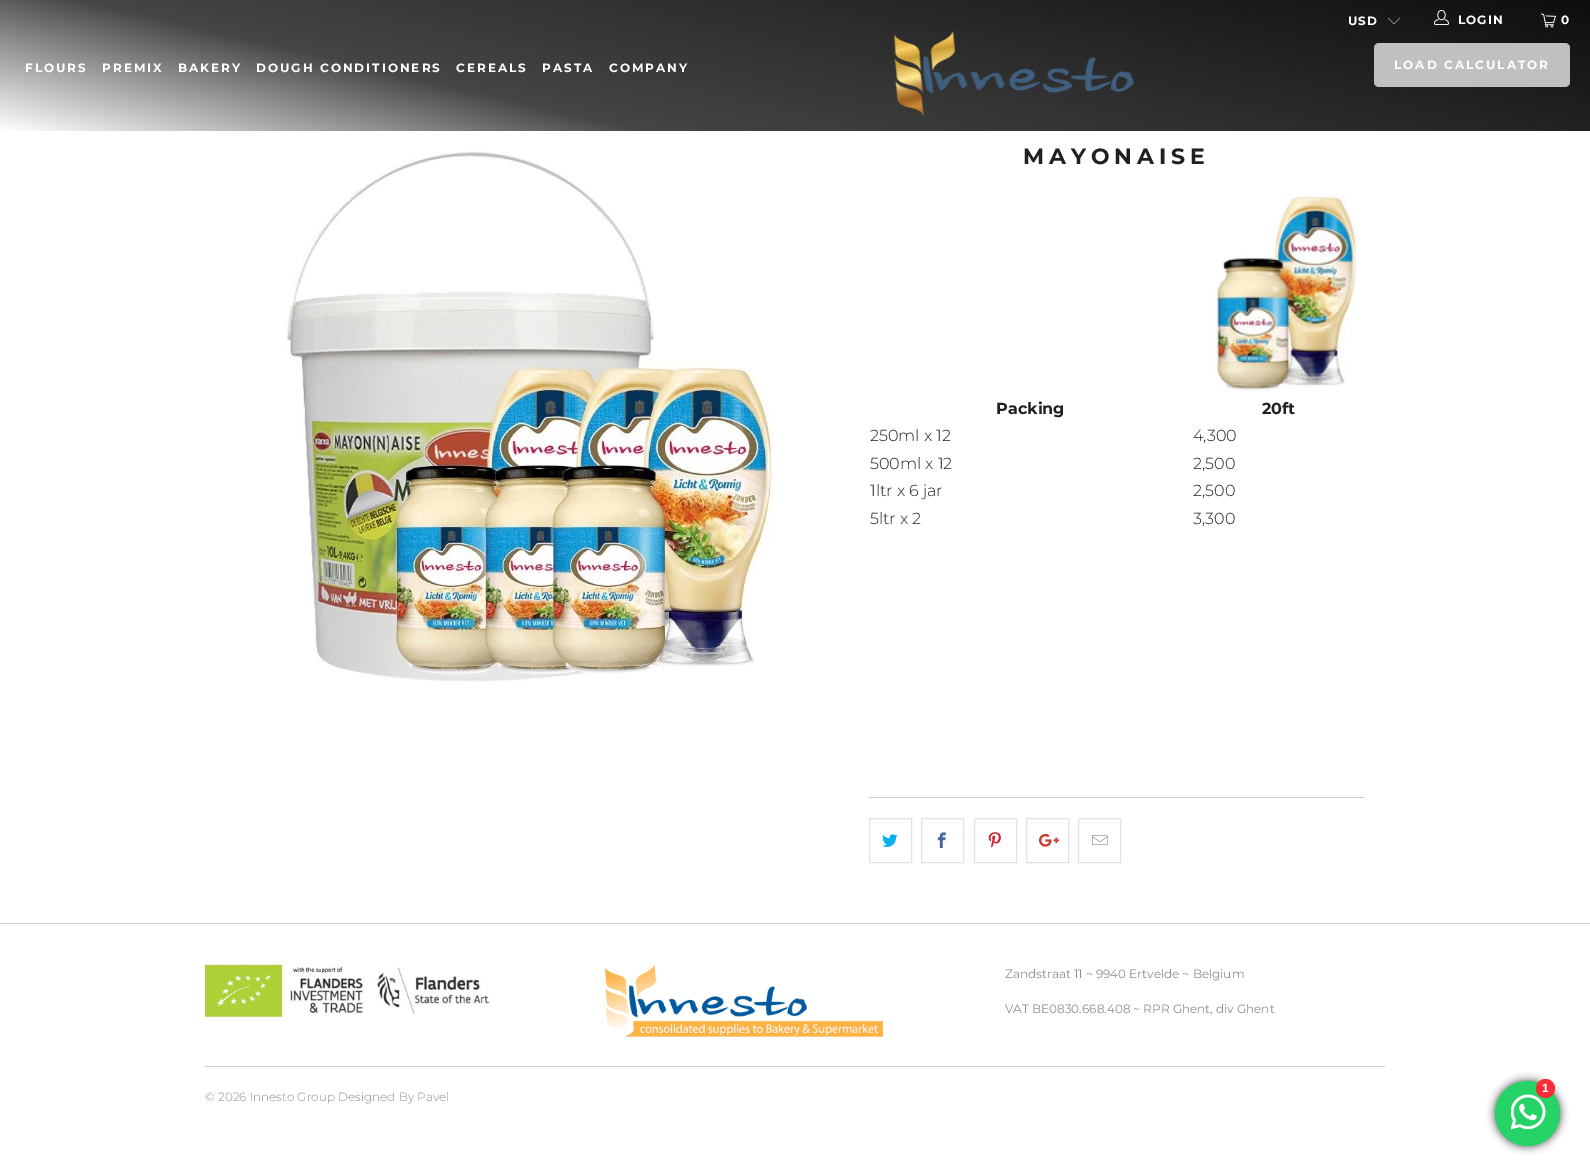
%!PS
<< /PageSize [1590 1176] /PageUsesTransparency true >> setpagedevice
/rgb { 3 { 255 div 3 1 roll } repeat setrgbcolor } def
/font { [ exch dup neg 0 0 3 -1 roll 0 0 ] selectfont } def
/alpha { dup .setfillconstantalpha .setstrokeconstantalpha } def
/circle { newpath 0 360 arc closepath } def
/roundrect { 5 dict begin { /r /h /w /y /x } { exch def } forall
  x r add y moveto x w add y 2 copy h add r arct x w add y h add x 1 index r arct
  x y h add x y r arct x y 2 copy exch w add exch r arct closepath end } def
/shadow { 12 dict begin { /a /b /q /h /w /y /x } { exch def } forall gsave /was 0 def
  9 -2 -9 { dup b mul 4 div /e exch def 1 sub .425 mul 2.718 exch exp 1 add a .99 .min exch div /now exch def
    1 1 now sub 1 was sub div sub alpha /was now def
    w h .min e 2 mul add 0 gt { x e sub y e sub w e 2 mul add h e 2 mul add
      q e add b .6 mul add w h .min 2 div e add .min 0 .max roundrect fill } if } for grestore end } def
/picture { 5 dict begin { /h /w /y /x /name } { exch def } forall
  gsave x y translate w h scale
  w h 8 [w 0 0 h 0 0] name (r) file false 3 colorimage grestore end } def
0 .pushpdf14devicefilter
0 1176 translate 1 -1 scale
4 setmiterlimit
255 255 255 rgb
0 0 1590 1176 rectfill
gsave 0 0 moveto 1590 0 lineto 1590 131 lineto 0 131 lineto closepath clip newpath
<< /ShadingType 2 /ColorSpace /DeviceRGB /Coords [850 -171 740 302] /Extend [true true] /Function << /FunctionType 3 /Domain [0 1] /Functions [<< /FunctionType 2 /Domain [0 1] /C0 [0.055 0.055 0.055] /C1 [0.271 0.271 0.275] /N 1 >> << /FunctionType 2 /Domain [0 1] /C0 [0.271 0.271 0.275] /C1 [0.996 0.996 0.996] /N 1 >>] /Bounds [0.7] /Encode [0 1 0 1] >> >> shfill grestore
(img/1.rgb) 1388 17 12 8 picture
(img/2.rgb) 1434 9 15 16 picture
(img/3.rgb) 1541 13 15 15 picture
(img/4.rgb) 893 31 241 85 picture
192 192 192 rgb
1374 43 196 44 5 roundrect fill
(img/5.rgb) 285 151 488 533 picture
(img/6.rgb) 1215 193 142 201 picture
204 204 204 rgb
869 797 496 1 rectfill
226 226 226 rgb
869.5 818.5 42 44 rectstroke
(img/7.rgb) 882 834 16 13 picture
921.5 818.5 42 44 rectstroke
(img/8.rgb) 937 832 9 16 picture
974.5 818.5 42 44 rectstroke
(img/9.rgb) 988 832 13 16 picture
1026.5 818.5 42 44 rectstroke
(img/10.rgb) 1039 833 21 14 picture
1078.5 818.5 42 44 rectstroke
(img/11.rgb) 1092 835 16 11 picture
204 204 204 rgb
0 923 1590 1 rectfill
(img/12.rgb) 205 964 285 53 picture
(img/13.rgb) 605 964 279 74 picture
205 1066 1180 1 rectfill
0 0 0 rgb
1495 1081 65 65 32.5 4 0.2 shadow
1495 1081 65 65 32.5 4 0.2 shadow
1495 1081 65 65 32.5 4 0.2 shadow
1495 1081 65 65 32.5 4 0.2 shadow
37 211 102 rgb
1527.5 1113.5 32.5 circle fill
(img/14.rgb) 1511 1094 35 36 picture
247 46 56 rgb
1545.5 1088.5 9.5 circle fill
/Montserrat-Bold 12 font
255 255 255 rgb
1348 25 moveto 1 0 (USD) ashow
1458 24 moveto 1 0 (LOGIN) ashow
1561 24 moveto 1 0 (0) ashow
25 72 moveto 2 0 (FLOURS) ashow
102 72 moveto 2 0 (PREMIX) ashow
178 72 moveto 2 0 (BAKERY) ashow
256 72 moveto 2 0 (DOUGH CONDITIONERS) ashow
456 72 moveto 2 0 (CEREALS) ashow
542 72 moveto 2 0 (PASTA) ashow
609 72 moveto 2 0 (COMPANY) ashow
1394 69 moveto 2 0 (LOAD CALCULATOR) ashow
/Montserrat-Bold 22 font
32 32 32 rgb
1023 164 moveto 5 0 (MAYONAISE) ashow
/Montserrat-Bold 16 font
996 414 moveto (Packing) show
1262 414 moveto (20ft) show
/Montserrat-Light 16 font
[
  [(250ml x 12) 870 441]
  [(4,300) 1193 441]
  [(500ml x 12) 870 469]
  [(2,500) 1193 469]
  [(1ltr x 6 jar) 870 496]
  [(2,500) 1193 496]
  [(5ltr x 2) 870 524]
  [(3,300) 1193 524]
] { aload pop moveto show } forall
/Montserrat-Thin 12 font
141 141 141 rgb
1005 978 moveto (Zandstraat 11 ~ 9940 Ertvelde ~ Belgium) show
1005 1013 moveto (VAT BE0830.668.408 ~ RPR Ghent, div Ghent) show
/Montserrat-Light 12 font
205 1101 moveto (© 2026 Innesto Group) show
338 1101 moveto (Designed By Pavel) show
/LiberationSans-Bold 12 font
255 255 255 rgb
1542 1092 moveto (1) show
.poppdf14devicefilter showpage
